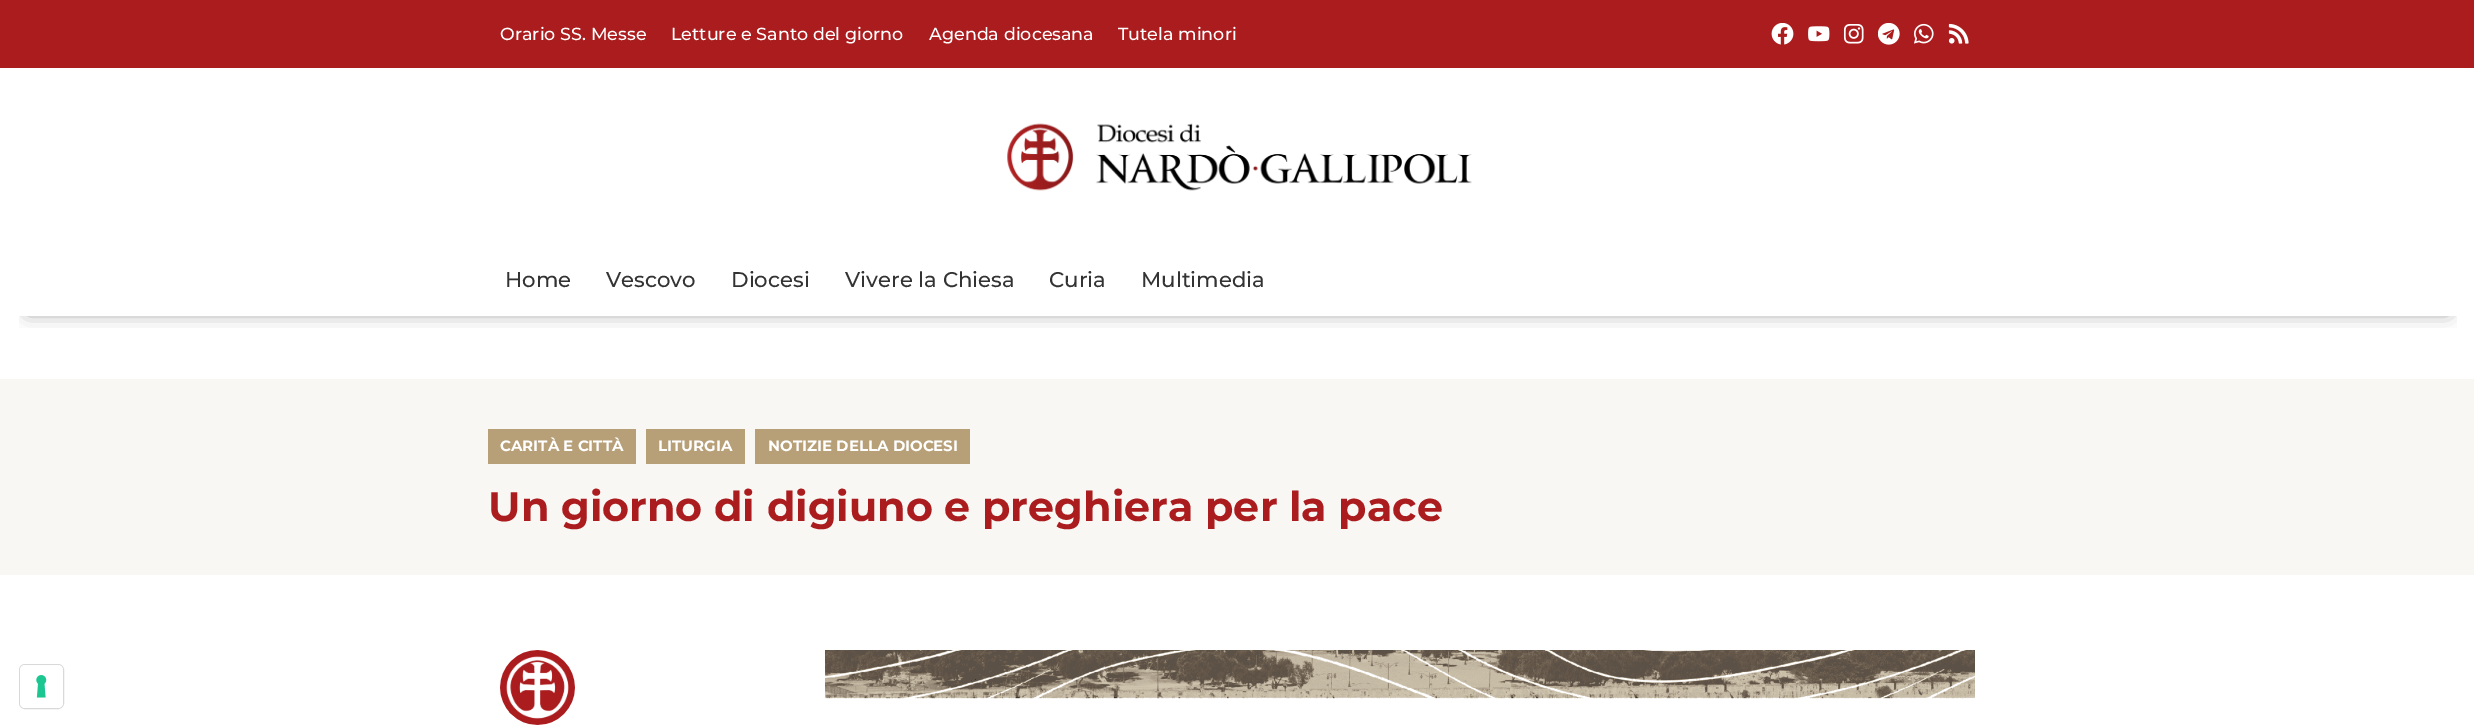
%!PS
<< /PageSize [2474 727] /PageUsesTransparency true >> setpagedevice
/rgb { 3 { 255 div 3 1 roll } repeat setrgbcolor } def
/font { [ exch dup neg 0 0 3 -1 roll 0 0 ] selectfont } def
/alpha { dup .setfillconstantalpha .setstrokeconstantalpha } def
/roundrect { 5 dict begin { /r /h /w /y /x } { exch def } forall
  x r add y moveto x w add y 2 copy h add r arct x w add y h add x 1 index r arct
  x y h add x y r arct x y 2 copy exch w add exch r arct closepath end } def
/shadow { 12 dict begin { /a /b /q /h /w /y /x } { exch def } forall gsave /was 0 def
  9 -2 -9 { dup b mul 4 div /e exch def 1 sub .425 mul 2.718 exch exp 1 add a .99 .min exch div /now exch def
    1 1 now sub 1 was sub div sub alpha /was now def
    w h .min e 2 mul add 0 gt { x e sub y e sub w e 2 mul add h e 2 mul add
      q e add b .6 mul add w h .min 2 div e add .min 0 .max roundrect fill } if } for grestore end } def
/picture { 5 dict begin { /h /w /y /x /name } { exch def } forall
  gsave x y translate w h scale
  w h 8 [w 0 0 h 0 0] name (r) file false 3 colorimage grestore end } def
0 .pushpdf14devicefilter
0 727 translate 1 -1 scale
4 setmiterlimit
255 255 255 rgb
0 0 2474 727 rectfill
171 28 30 rgb
0 0 2474 68 rectfill
(img/1.rgb) 1771 23 23 22 picture
(img/2.rgb) 1808 26 22 16 picture
(img/3.rgb) 1843 24 21 20 picture
(img/4.rgb) 1878 23 22 22 picture
(img/5.rgb) 1914 23 20 21 picture
(img/6.rgb) 1948 23 21 21 picture
(img/7.rgb) 1007 123 465 68 picture
gsave
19 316 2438 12 rectclip
0 0 0 rgb
28 293 2420 18 0 9.5 0.5 shadow
grestore
[
  [0 379 2474 196 248 247 244]
  [488 429 148 35 183 159 120]
  [646 429 99 35 183 159 120]
  [755 429 215 35 183 159 120]
] { aload pop rgb rectfill } forall
(img/8.rgb) 500 650 75 75 picture
(img/9.rgb) 825 650 1150 49 picture
217 217 217 rgb
19.5 664.5 44 44 5.5 roundrect stroke
255 255 255 rgb
20 665 43 43 5 roundrect fill
(img/10.rgb) 36 675 11 23 picture
/Montserrat-Medium 17.5 font
[
  [(Orario SS. Messe) 500 40]
  [(Letture e Santo del giorno) 671 40]
  [(Agenda diocesana) 929 40]
  [(Tutela minori) 1118 40]
] { aload pop moveto show } forall
/Montserrat-Medium 21.25 font
51 51 51 rgb
[
  [(Home) 505 287]
  [(Vescovo) 606 287]
  [(Diocesi) 731 287]
  [(Vivere la Chiesa) 845 287]
  [(Curia) 1049 287]
  [(Multimedia) 1141 287]
] { aload pop moveto show } forall
/Montserrat-Bold 15 font
255 255 255 rgb
[
  [(CARITÀ E CITTÀ) 500 451]
  [(LITURGIA) 658 451]
  [(NOTIZIE DELLA DIOCESI) 768 451]
] { aload pop moveto show } forall
/Montserrat-Bold 41.25 font
171 28 30 rgb
488 521 moveto (Un giorno di digiuno e preghiera per la pace) show
.poppdf14devicefilter showpage
